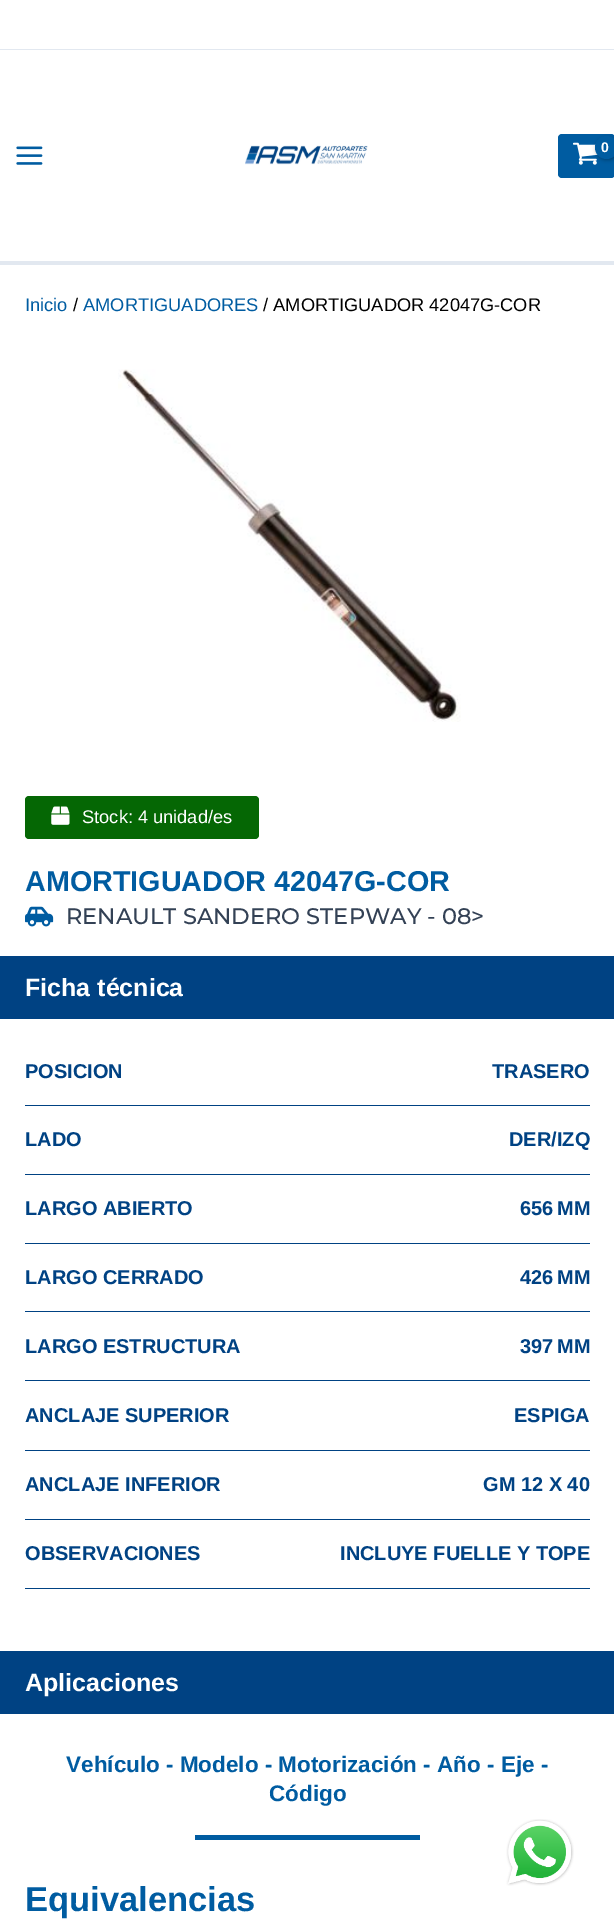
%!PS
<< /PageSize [614 1927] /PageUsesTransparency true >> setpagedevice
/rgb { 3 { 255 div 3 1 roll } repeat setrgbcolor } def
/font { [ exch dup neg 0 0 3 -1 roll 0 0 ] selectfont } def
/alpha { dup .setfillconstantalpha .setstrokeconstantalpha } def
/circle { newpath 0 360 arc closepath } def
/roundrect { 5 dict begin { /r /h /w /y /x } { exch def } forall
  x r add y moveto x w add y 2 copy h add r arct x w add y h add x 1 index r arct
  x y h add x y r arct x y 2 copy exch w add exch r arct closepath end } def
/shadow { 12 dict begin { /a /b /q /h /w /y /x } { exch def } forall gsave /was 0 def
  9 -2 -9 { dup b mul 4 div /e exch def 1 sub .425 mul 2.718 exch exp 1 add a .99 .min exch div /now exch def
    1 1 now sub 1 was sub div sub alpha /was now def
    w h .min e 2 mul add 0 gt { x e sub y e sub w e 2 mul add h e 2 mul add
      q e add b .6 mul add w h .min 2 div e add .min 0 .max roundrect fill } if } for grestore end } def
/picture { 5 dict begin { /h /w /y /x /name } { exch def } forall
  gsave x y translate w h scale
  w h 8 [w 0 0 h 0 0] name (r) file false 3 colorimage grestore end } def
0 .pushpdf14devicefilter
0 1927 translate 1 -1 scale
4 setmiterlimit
255 255 255 rgb
0 0 614 1927 rectfill
226 232 240 rgb
0 49 614 1 rectfill
0 261 614 4 rectfill
(img/1.rgb) 16 146 27 19 picture
(img/2.rgb) 245 145 123 20 picture
0 92 161 rgb
558 134 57 44 4 roundrect fill
(img/3.rgb) 573 142 25 23 picture
0 0 0 rgb
596 138 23 22 11 2 0.3 shadow
0 92 161 rgb
606.5 147.5 11.5 circle fill
(img/4.rgb) 118 369 343 353 picture
5 103 4 rgb
25 796 234 43 4 roundrect fill
(img/5.rgb) 51 806 19 19 picture
(img/6.rgb) 25 906 29 21 picture
[
  [0 956 614 63 0 66 131]
  [25 1105 565 1 0 66 131]
  [25 1174 565 1 0 66 131]
  [25 1243 565 1 0 66 131]
  [25 1311 565 1 0 66 131]
  [25 1380 565 1 0 66 131]
  [25 1450 565 1 0 66 131]
  [25 1519 565 1 0 66 131]
  [25 1588 565 1 0 66 131]
  [0 1651 614 63 0 66 131]
  [195 1835 225 5 0 92 161]
] { aload pop rgb rectfill } forall
(img/7.rgb) 506 1819 68 67 picture
/LiberationSans-Bold 14 font
255 255 255 rgb
601 152 moveto -1 0 (0) ashow
/LiberationSans-Regular 18.25 font
0 92 161 rgb
25 311 moveto (Inicio) show
0 0 0 rgb
73 311 moveto (/) show
0 92 161 rgb
83 311 moveto (AMORTIGUADORES) show
0 0 0 rgb
263 311 moveto (/ AMORTIGUADOR 42047G-COR) show
255 255 255 rgb
82 823 moveto (Stock: 4 unidad/es) show
/LiberationSans-Bold 28.75 font
0 92 161 rgb
25 891 moveto (AMORTIGUADOR 42047G-COR) show
/Montserrat-Medium 22.5 font
51 65 85 rgb
66 924 moveto (RENAULT SANDERO STEPWAY - 08>) show
/LiberationSans-Bold 25 font
255 255 255 rgb
25 996 moveto (Ficha técnica) show
/LiberationSans-Bold 20 font
0 66 131 rgb
[
  [(POSICION) 25 1078]
  [(TRASERO) 492 1078]
  [(LADO) 25 1146]
  [(DER/IZQ) 509 1146]
  [(LARGO ABIERTO) 25 1215]
  [(656) 520 1215]
  [(MM) 557 1215]
  [(LARGO CERRADO) 25 1284]
  [(426) 520 1284]
  [(MM) 557 1284]
  [(LARGO ESTRUCTURA) 25 1353]
  [(397) 520 1353]
  [(MM) 557 1353]
  [(ANCLAJE SUPERIOR) 25 1422]
  [(ESPIGA) 514 1422]
  [(ANCLAJE INFERIOR) 25 1491]
  [(GM 12 X 40) 483 1491]
  [(OBSERVACIONES) 25 1560]
  [(INCLUYE FUELLE Y TOPE) 340 1560]
] { aload pop moveto show } forall
/LiberationSans-Bold 25 font
255 255 255 rgb
25 1691 moveto (Aplicaciones) show
/LiberationSans-Bold 22.5 font
0 92 161 rgb
66 1772 moveto (Vehículo - Modelo - Motorización - Año - Eje -) show
269 1801 moveto (Código) show
/LiberationSans-Bold 34.5 font
25 1911 moveto (Equivalencias) show
.poppdf14devicefilter showpage
